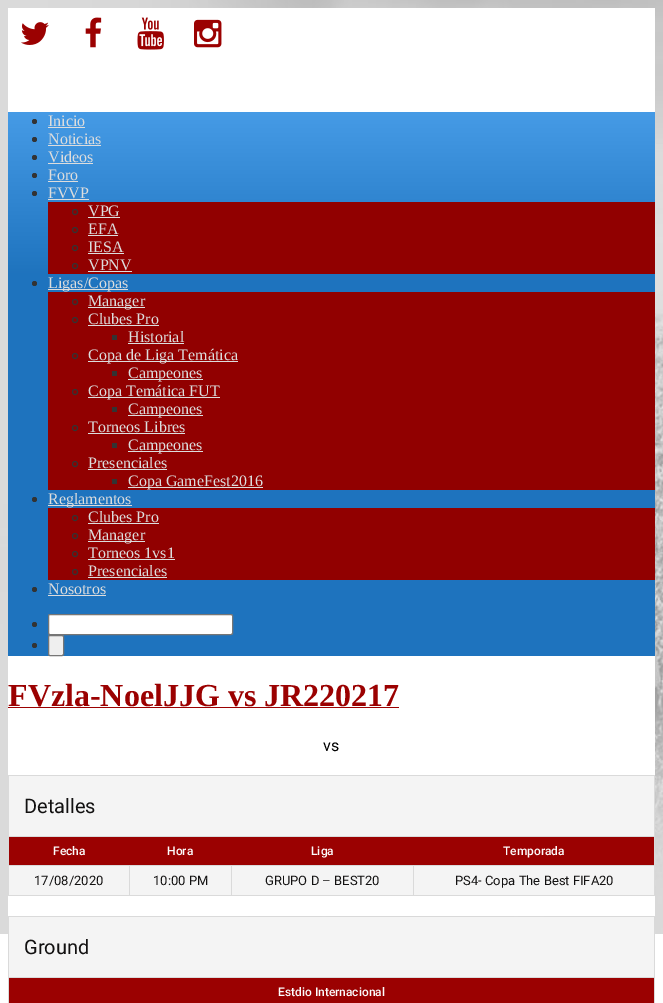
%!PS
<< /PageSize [663 1003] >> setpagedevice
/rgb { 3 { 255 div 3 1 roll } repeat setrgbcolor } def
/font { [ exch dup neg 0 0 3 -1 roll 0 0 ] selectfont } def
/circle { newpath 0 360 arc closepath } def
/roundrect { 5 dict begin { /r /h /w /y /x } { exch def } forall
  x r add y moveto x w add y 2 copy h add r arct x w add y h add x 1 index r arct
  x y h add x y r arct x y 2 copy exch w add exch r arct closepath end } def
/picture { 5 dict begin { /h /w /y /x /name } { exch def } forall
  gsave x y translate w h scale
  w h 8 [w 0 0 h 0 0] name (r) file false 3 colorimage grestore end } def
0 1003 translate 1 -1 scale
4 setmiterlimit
255 255 255 rgb
0 0 663 1003 rectfill
(img/1.rgb) 0 0 663 934 picture
8 8 647 908 rectfill
(img/2.rgb) 21 22 28 23 picture
(img/3.rgb) 85 17 17 31 picture
(img/4.rgb) 137 17 27 33 picture
(img/5.rgb) 194 19 28 29 picture
gsave 8 112 moveto 655 112 lineto 655 656 lineto 8 656 lineto closepath clip newpath
<< /ShadingType 2 /ColorSpace /DeviceRGB /Coords [8 112 8 656] /Extend [true true] /Function << /FunctionType 3 /Domain [0 1] /Functions [<< /FunctionType 2 /Domain [0 1] /C0 [0.275 0.608 0.902] /C1 [0.118 0.451 0.745] /N 1 >> << /FunctionType 2 /Domain [0 1] /C0 [0.118 0.451 0.745] /C1 [0.118 0.451 0.745] /N 1 >>] /Bounds [0.3] /Encode [0 1 0 1] >> >> shfill grestore
51 51 51 rgb
34.5 121.5 2.5 circle fill
221 221 221 rgb
48 127 37 1 rectfill
51 51 51 rgb
34.5 139.5 2.5 circle fill
221 221 221 rgb
48 145 53 1 rectfill
51 51 51 rgb
34.5 157.5 2.5 circle fill
221 221 221 rgb
48 163 45 1 rectfill
51 51 51 rgb
34.5 175.5 2.5 circle fill
221 221 221 rgb
48 181 30 1 rectfill
51 51 51 rgb
34.5 193.5 2.5 circle fill
221 221 221 rgb
48 199 41 1 rectfill
145 0 0 rgb
48 202 607 72 rectfill
51 51 51 rgb
75 212 2.5 circle stroke
221 221 221 rgb
88 217 32 1 rectfill
51 51 51 rgb
75 230 2.5 circle stroke
221 221 221 rgb
88 235 30 1 rectfill
51 51 51 rgb
75 248 2.5 circle stroke
221 221 221 rgb
88 253 36 1 rectfill
51 51 51 rgb
75 266 2.5 circle stroke
221 221 221 rgb
88 271 44 1 rectfill
51 51 51 rgb
34.5 283.5 2.5 circle fill
221 221 221 rgb
48 289 80 1 rectfill
145 0 0 rgb
48 292 607 198 rectfill
51 51 51 rgb
75 302 2.5 circle stroke
221 221 221 rgb
88 307 57 1 rectfill
51 51 51 rgb
75 320 2.5 circle stroke
[
  [88 325 71 1 221 221 221]
  [112 335 5 5 51 51 51]
  [128 343 56 1 221 221 221]
] { aload pop rgb rectfill } forall
51 51 51 rgb
75 356 2.5 circle stroke
[
  [88 361 150 1 221 221 221]
  [112 371 5 5 51 51 51]
  [128 379 75 1 221 221 221]
] { aload pop rgb rectfill } forall
51 51 51 rgb
75 392 2.5 circle stroke
[
  [88 397 132 1 221 221 221]
  [112 407 5 5 51 51 51]
  [128 415 75 1 221 221 221]
] { aload pop rgb rectfill } forall
51 51 51 rgb
75 428 2.5 circle stroke
[
  [88 433 97 1 221 221 221]
  [112 443 5 5 51 51 51]
  [128 451 75 1 221 221 221]
] { aload pop rgb rectfill } forall
51 51 51 rgb
75 464 2.5 circle stroke
[
  [88 469 79 1 221 221 221]
  [112 479 5 5 51 51 51]
  [128 487 135 1 221 221 221]
] { aload pop rgb rectfill } forall
51 51 51 rgb
34.5 499.5 2.5 circle fill
221 221 221 rgb
48 505 84 1 rectfill
145 0 0 rgb
48 508 607 72 rectfill
51 51 51 rgb
75 518 2.5 circle stroke
221 221 221 rgb
88 523 71 1 rectfill
51 51 51 rgb
75 536 2.5 circle stroke
221 221 221 rgb
88 541 57 1 rectfill
51 51 51 rgb
75 554 2.5 circle stroke
221 221 221 rgb
88 559 87 1 rectfill
51 51 51 rgb
75 572 2.5 circle stroke
221 221 221 rgb
88 577 79 1 rectfill
51 51 51 rgb
34.5 589.5 2.5 circle fill
221 221 221 rgb
48 595 58 1 rectfill
51 51 51 rgb
34.5 624.5 2.5 circle fill
255 255 255 rgb
48.5 614.5 184 20 1.5 roundrect gsave fill grestore
118 118 118 rgb
stroke
51 51 51 rgb
34.5 645.5 2.5 circle fill
239 239 239 rgb
48.5 635.5 15 20 1.5 roundrect gsave fill grestore
118 118 118 rgb
stroke
[
  [8 707 391 1 155 1 1]
  [9 776 645 60 244 244 244]
  [8 775 647 1 218 218 218]
  [654 775 1 61 218 218 218]
  [8 775 1 61 218 218 218]
  [9 866 645 29 244 244 244]
  [8 836 647 1 218 218 218]
  [654 836 1 60 218 218 218]
  [8 895 647 1 218 218 218]
  [8 836 1 60 218 218 218]
  [9 837 645 28 155 1 1]
  [413 865 242 1 218 218 218]
  [413 865 1 31 218 218 218]
  [231 865 183 1 218 218 218]
  [231 865 1 31 218 218 218]
  [129 865 103 1 218 218 218]
  [129 865 1 31 218 218 218]
  [8 865 122 1 218 218 218]
  [9 917 645 60 244 244 244]
  [654 934 1 43 218 218 218]
  [8 934 1 43 218 218 218]
  [8 977 647 1 218 218 218]
  [654 977 1 26 218 218 218]
  [8 977 1 26 218 218 218]
  [9 978 645 25 155 1 1]
] { aload pop rgb rectfill } forall
/LiberationSerif-Regular 16 font
221 221 221 rgb
[
  [(Inicio) 48 126]
  [(Noticias) 48 144]
  [(Videos) 48 162]
  [(Foro) 48 180]
  [(FVVP) 48 198]
  [(VPG) 88 216]
  [(EFA) 88 234]
  [(IESA) 88 252]
  [(VPNV) 88 270]
  [(Ligas/Copas) 48 288]
  [(Manager) 88 306]
  [(Clubes Pro) 88 324]
  [(Historial) 128 342]
  [(Copa de Liga Temática) 88 360]
  [(Campeones) 128 378]
  [(Copa Temática FUT) 88 396]
  [(Campeones) 128 414]
  [(Torneos Libres) 88 432]
  [(Campeones) 128 450]
  [(Presenciales) 88 468]
  [(Copa GameFest2016) 128 486]
  [(Reglamentos) 48 504]
  [(Clubes Pro) 88 522]
  [(Manager) 88 540]
  [(Torneos 1vs1) 88 558]
  [(Presenciales) 88 576]
  [(Nosotros) 48 594]
] { aload pop moveto show } forall
/LiberationSerif-Bold 32 font
155 1 1 rgb
8 706 moveto (FVzla-NoelJJG vs JR220217) show
/Roboto-Regular 16 font
0 0 0 rgb
323 751 moveto (vs) show
/Roboto-Regular 20 font
18 17 17 rgb
24 813 moveto (Detalles) show
/Roboto-Medium 12 font
252 252 252 rgb
[
  [(Fecha) 53 855]
  [(Hora) 167 855]
  [(Liga) 311 855]
  [(Temporada) 503 855]
] { aload pop moveto show } forall
/Roboto-Regular 13 font
18 17 17 rgb
[
  [(17/08/2020) 34 885]
  [(10:00 PM) 153 885]
  [(GRUPO D – BEST20) 265 885]
  [(PS4- Copa The Best FIFA20) 455 885]
] { aload pop moveto show } forall
/Roboto-Regular 20 font
24 954 moveto (Ground) show
/Roboto-Medium 12 font
252 252 252 rgb
278 996 moveto (Estdio Internacional) show
showpage
